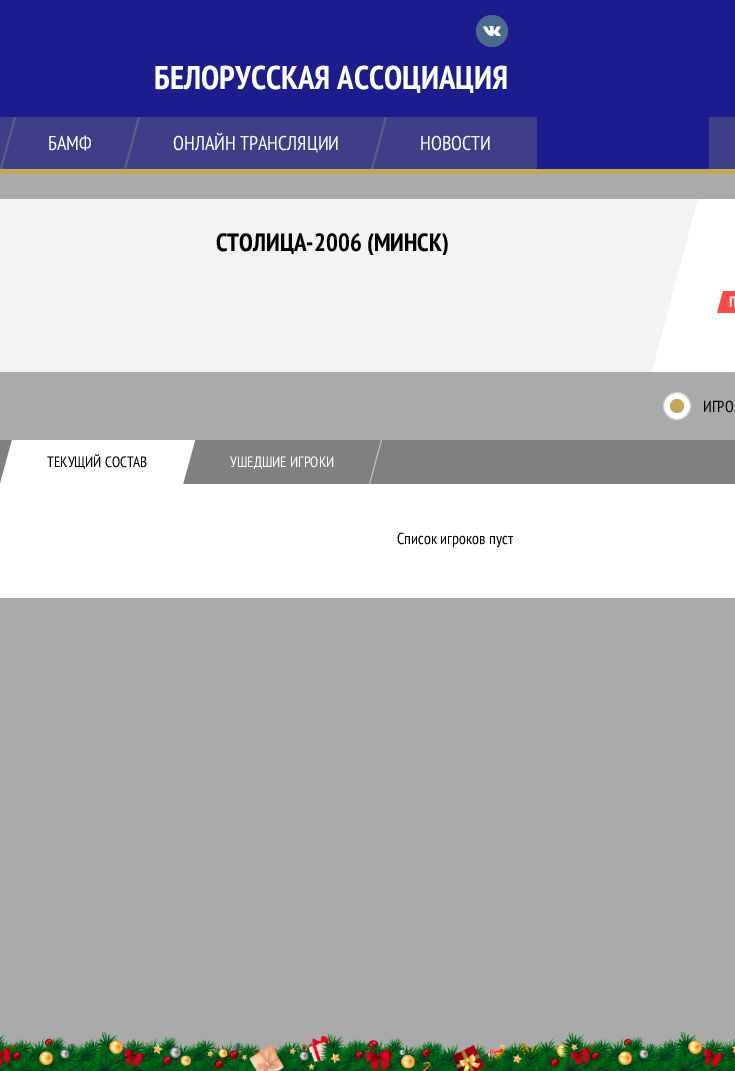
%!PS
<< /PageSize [735 1071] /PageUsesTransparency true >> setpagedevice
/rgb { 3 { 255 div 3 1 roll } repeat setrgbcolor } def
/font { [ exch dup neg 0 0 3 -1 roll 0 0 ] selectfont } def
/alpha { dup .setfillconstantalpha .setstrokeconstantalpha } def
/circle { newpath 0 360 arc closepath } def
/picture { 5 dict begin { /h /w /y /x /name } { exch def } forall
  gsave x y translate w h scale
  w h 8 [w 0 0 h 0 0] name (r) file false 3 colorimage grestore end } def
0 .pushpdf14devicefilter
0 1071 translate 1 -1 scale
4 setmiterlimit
170 170 170 rgb
0 0 735 1071 rectfill
28 28 142 rgb
0 0 735 117 rectfill
74 106 142 rgb
492 31 16 circle fill
(img/1.rgb) 483 25 18 12 picture
28 28 142 rgb
537 117 172 52 rectfill
62 62 137 rgb
0 117 537 52 rectfill
92 92 133 rgb
14 117 moveto 16 117 lineto 2 169 lineto 0 169 lineto closepath fill
138 117 moveto 140 117 lineto 126 169 lineto 124 169 lineto closepath fill
385 117 moveto 387 117 lineto 373 169 lineto 371 169 lineto closepath fill
62 62 137 rgb
709 117 26 52 rectfill
196 169 84 rgb
0 169 735 5 rectfill
gsave 0 199 moveto 735 199 lineto 735 372 lineto 0 372 lineto closepath clip newpath
<< /ShadingType 2 /ColorSpace /DeviceRGB /Coords [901 405 9 166] /Extend [true true] /Function << /FunctionType 3 /Domain [0 1] /Functions [<< /FunctionType 2 /Domain [0 1] /C0 [1 1 1] /C1 [1 1 1] /N 1 >> << /FunctionType 2 /Domain [0 1] /C0 [0.953 0.953 0.953] /C1 [0.953 0.953 0.953] /N 1 >>] /Bounds [0.27] /Encode [0 1 0 1] >> >> shfill grestore
255 72 71 rgb
723 291 moveto 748 291 lineto 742 313 lineto 717 313 lineto closepath fill
255 255 255 rgb
677 406 13.5 circle gsave fill grestore
207 207 207 rgb
stroke
196 169 84 rgb
677 406 7 circle fill
128 128 128 rgb
0 440 735 44 rectfill
255 255 255 rgb
12 440 moveto 195 440 lineto 183 484 lineto 0 484 lineto closepath fill
0.5 alpha
194 440 moveto 195 440 lineto 183 484 lineto 182 484 lineto closepath fill
1 alpha
192 192 192 rgb
381 440 moveto 382 440 lineto 370 484 lineto 369 484 lineto closepath fill
255 255 255 rgb
0 484 735 114 rectfill
(img/2.rgb) 0 1031 735 40 picture
/PTSansNarrow-Bold 33 font
154 89 moveto (БЕЛОРУССКАЯ АССОЦИАЦИЯ) show
/PTSansNarrow-Regular 20 font
[
  [(БАМФ) 48 150]
  [(ОНЛАЙН ТРАНСЛЯЦИИ) 173 150]
  [(НОВОСТИ) 420 150]
] { aload pop moveto show } forall
gsave
216 229 400 26 rectclip
/PTSansNarrow-Bold 25 font
0 0 0 rgb
216 251 moveto (СТОЛИЦА-2006 \(МИНСК\)) show
grestore
/PTSansNarrow-Bold 15 font
729 307 moveto (П) show
/PTSansNarrow-Regular 16 font
0 0 0 rgb
703 412 moveto (ИГРО) show
/PTSansNarrow-Regular 15 font
47 467 moveto (ТЕКУЩИЙ СОСТАВ) show
255 255 255 rgb
230 467 moveto (УШЕДШИЕ ИГРОКИ) show
/PTSansNarrow-Regular 16 font
0 0 0 rgb
397 544 moveto (Список игроков пуст) show
.poppdf14devicefilter showpage
